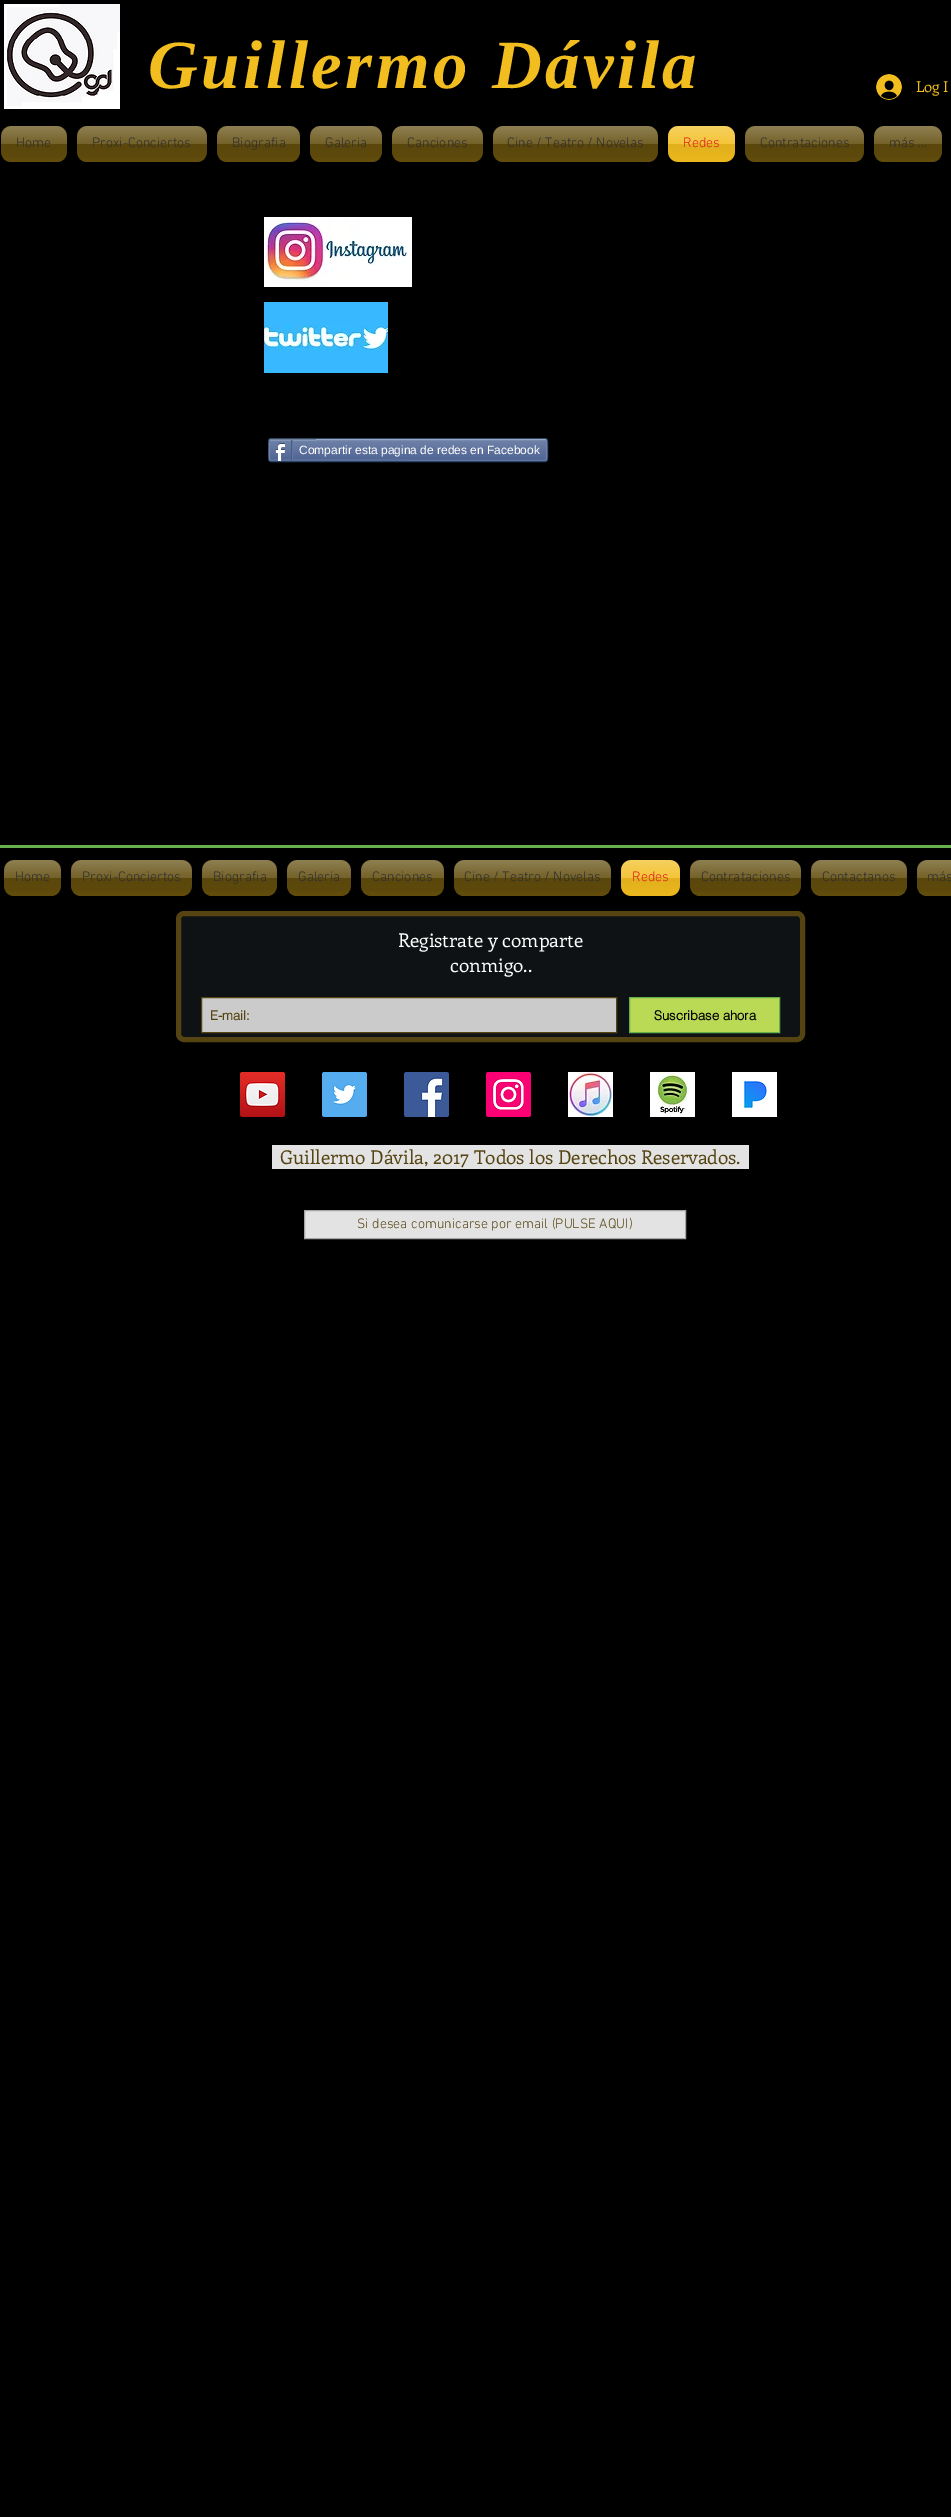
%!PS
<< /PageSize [951 2517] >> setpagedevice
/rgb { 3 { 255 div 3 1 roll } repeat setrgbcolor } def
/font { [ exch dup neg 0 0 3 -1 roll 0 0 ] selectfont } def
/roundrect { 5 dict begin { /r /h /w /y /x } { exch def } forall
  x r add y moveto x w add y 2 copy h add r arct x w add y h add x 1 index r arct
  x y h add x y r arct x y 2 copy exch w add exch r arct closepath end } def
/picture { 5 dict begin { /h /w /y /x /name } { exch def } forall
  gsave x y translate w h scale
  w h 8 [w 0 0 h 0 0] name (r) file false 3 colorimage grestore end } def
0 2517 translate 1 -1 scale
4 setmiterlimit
0 0 0 rgb
0 0 951 2517 rectfill
(img/1.rgb) 4 4 116 105 picture
(img/2.rgb) 876 74 26 26 picture
97 76 12 rgb
1 126 66 36 10 roundrect fill
(img/3.rgb) 1 126 66 32 picture
77 126 130 36 10 roundrect fill
(img/4.rgb) 77 126 130 32 picture
217 126 83 36 10 roundrect fill
(img/5.rgb) 217 126 83 32 picture
310 126 72 36 10 roundrect fill
(img/6.rgb) 310 126 72 32 picture
392 126 91 36 10 roundrect fill
(img/7.rgb) 392 126 91 32 picture
493 126 165 36 10 roundrect fill
(img/8.rgb) 493 126 165 32 picture
242 189 30 rgb
668 126 67 36 10 roundrect fill
(img/9.rgb) 668 126 67 36 picture
97 76 12 rgb
745 126 119 36 10 roundrect fill
(img/10.rgb) 745 126 119 32 picture
874 126 68 36 10 roundrect fill
(img/11.rgb) 874 126 68 32 picture
(img/12.rgb) 264 217 148 70 picture
(img/13.rgb) 264 302 124 71 picture
45 69 101 rgb
268.5 438.5 279 23 2.5 roundrect stroke
(img/14.rgb) 269 440 278 21 picture
154 171 198 rgb
270 440 moveto 362.5 439.5 lineto 545 439.5 lineto 546 440 lineto stroke
111 131 173 rgb
546 440 moveto 547 440.5 547 459.5 546 460 curveto stroke
97 118 163 rgb
546 460 moveto 545 460.5 lineto 270 460 lineto stroke
111 131 173 rgb
270 460 moveto 269 459.5 269 440.5 270 440 curveto stroke
(img/15.rgb) 275 443 10 18 picture
[
  [291 440 1 21 66 94 133]
  [292 440 1 20 97 118 163]
  [0 845 951 3 104 176 77]
] { aload pop rgb rectfill } forall
97 76 12 rgb
4 860 57 36 10 roundrect fill
(img/16.rgb) 4 860 57 32 picture
71 860 121 36 10 roundrect fill
(img/17.rgb) 71 860 121 32 picture
202 860 75 36 10 roundrect fill
(img/18.rgb) 202 860 75 32 picture
287 860 64 36 10 roundrect fill
(img/19.rgb) 287 860 64 32 picture
361 860 83 36 10 roundrect fill
(img/20.rgb) 361 860 83 32 picture
454 860 157 36 10 roundrect fill
(img/21.rgb) 454 860 157 32 picture
242 189 30 rgb
621 860 59 36 10 roundrect fill
(img/22.rgb) 621 860 59 36 picture
97 76 12 rgb
690 860 111 36 10 roundrect fill
(img/23.rgb) 690 860 111 32 picture
811 860 96 36 10 roundrect fill
(img/24.rgb) 811 860 96 32 picture
917 860 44 36 10 roundrect fill
(img/25.rgb) 917 860 34 32 picture
15 18 20 rgb
178.5 913.5 624 126 5.5 roundrect gsave fill grestore
85 68 18 rgb
5 setlinewidth
stroke
203 203 203 rgb
201.5 997.5 moveto 616.5 997.5 lineto 616.5 1032.5 lineto 201.5 1032.5 lineto closepath gsave fill grestore
85 68 18 rgb
1 setlinewidth
stroke
186 218 85 rgb
629.5 997.5 moveto 779.5 997.5 lineto 779.5 1032.5 lineto 629.5 1032.5 lineto closepath gsave fill grestore
104 176 77 rgb
stroke
(img/26.rgb) 240 1072 45 45 picture
(img/27.rgb) 322 1072 45 45 picture
(img/28.rgb) 404 1072 45 45 picture
(img/29.rgb) 486 1072 45 45 picture
(img/30.rgb) 568 1072 45 45 picture
(img/31.rgb) 650 1072 45 45 picture
(img/32.rgb) 732 1072 45 45 picture
227 227 227 rgb
272 1145 477 24 rectfill
304.5 1210.5 moveto 685.5 1210.5 lineto 685.5 1238.5 lineto 304.5 1238.5 lineto closepath gsave fill grestore
165 165 166 rgb
stroke
/LiberationSerif-BoldItalic 69 font
242 189 30 rgb
148 88 moveto 3.5 0 (Guillermo Dávila) ashow
/Enriqueta-Regular 15 font
916 92 moveto (Log I) show
/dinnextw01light-Light 14 font
47 47 48 rgb
[
  [(Home) 16 147]
  [(Proxi-Conciertos) 92 147]
  [(Biografia) 232 147]
  [(Galeria) 325 147]
  [(Canciones) 407 147]
  [(Cine / Teatro / Novelas) 507 147]
] { aload pop moveto show } forall
226 28 33 rgb
683 147 moveto (Redes) show
47 47 48 rgb
760 147 moveto (Contrataciones) show
889 147 moveto (más ...) show
/LiberationSans-Regular 12 font
255 255 255 rgb
299 454 moveto (Compartir esta pagina de redes en Facebook) show
/dinnextw01light-Light 14 font
47 47 48 rgb
[
  [(Home) 15 881]
  [(Proxi-Conciertos) 82 881]
  [(Biografia) 213 881]
  [(Galeria) 298 881]
  [(Canciones) 372 881]
  [(Cine / Teatro / Novelas) 464 881]
] { aload pop moveto show } forall
226 28 33 rgb
632 881 moveto (Redes) show
47 47 48 rgb
[
  [(Contrataciones) 701 881]
  [(Contactanos) 822 881]
  [(más) 927 881]
] { aload pop moveto show } forall
/Enriqueta-Regular 19 font
255 255 255 rgb
398 947 moveto (Registrate y comparte) show
450 972 moveto (conmigo..) show
/helvetica-Bold 13 font
85 68 18 rgb
210 1020 moveto (E-mail:) show
0 0 0 rgb
654 1020 moveto (Suscribase ahora) show
/Enriqueta-Regular 19 font
85 68 18 rgb
280 1164 moveto (Guillermo Dávila, 2017 Todos los Derechos Reservados.) show
/dinnextw01light-Light 14 font
357 1228 moveto (Si desea comunicarse por email \(PULSE AQUI\)) show
showpage
